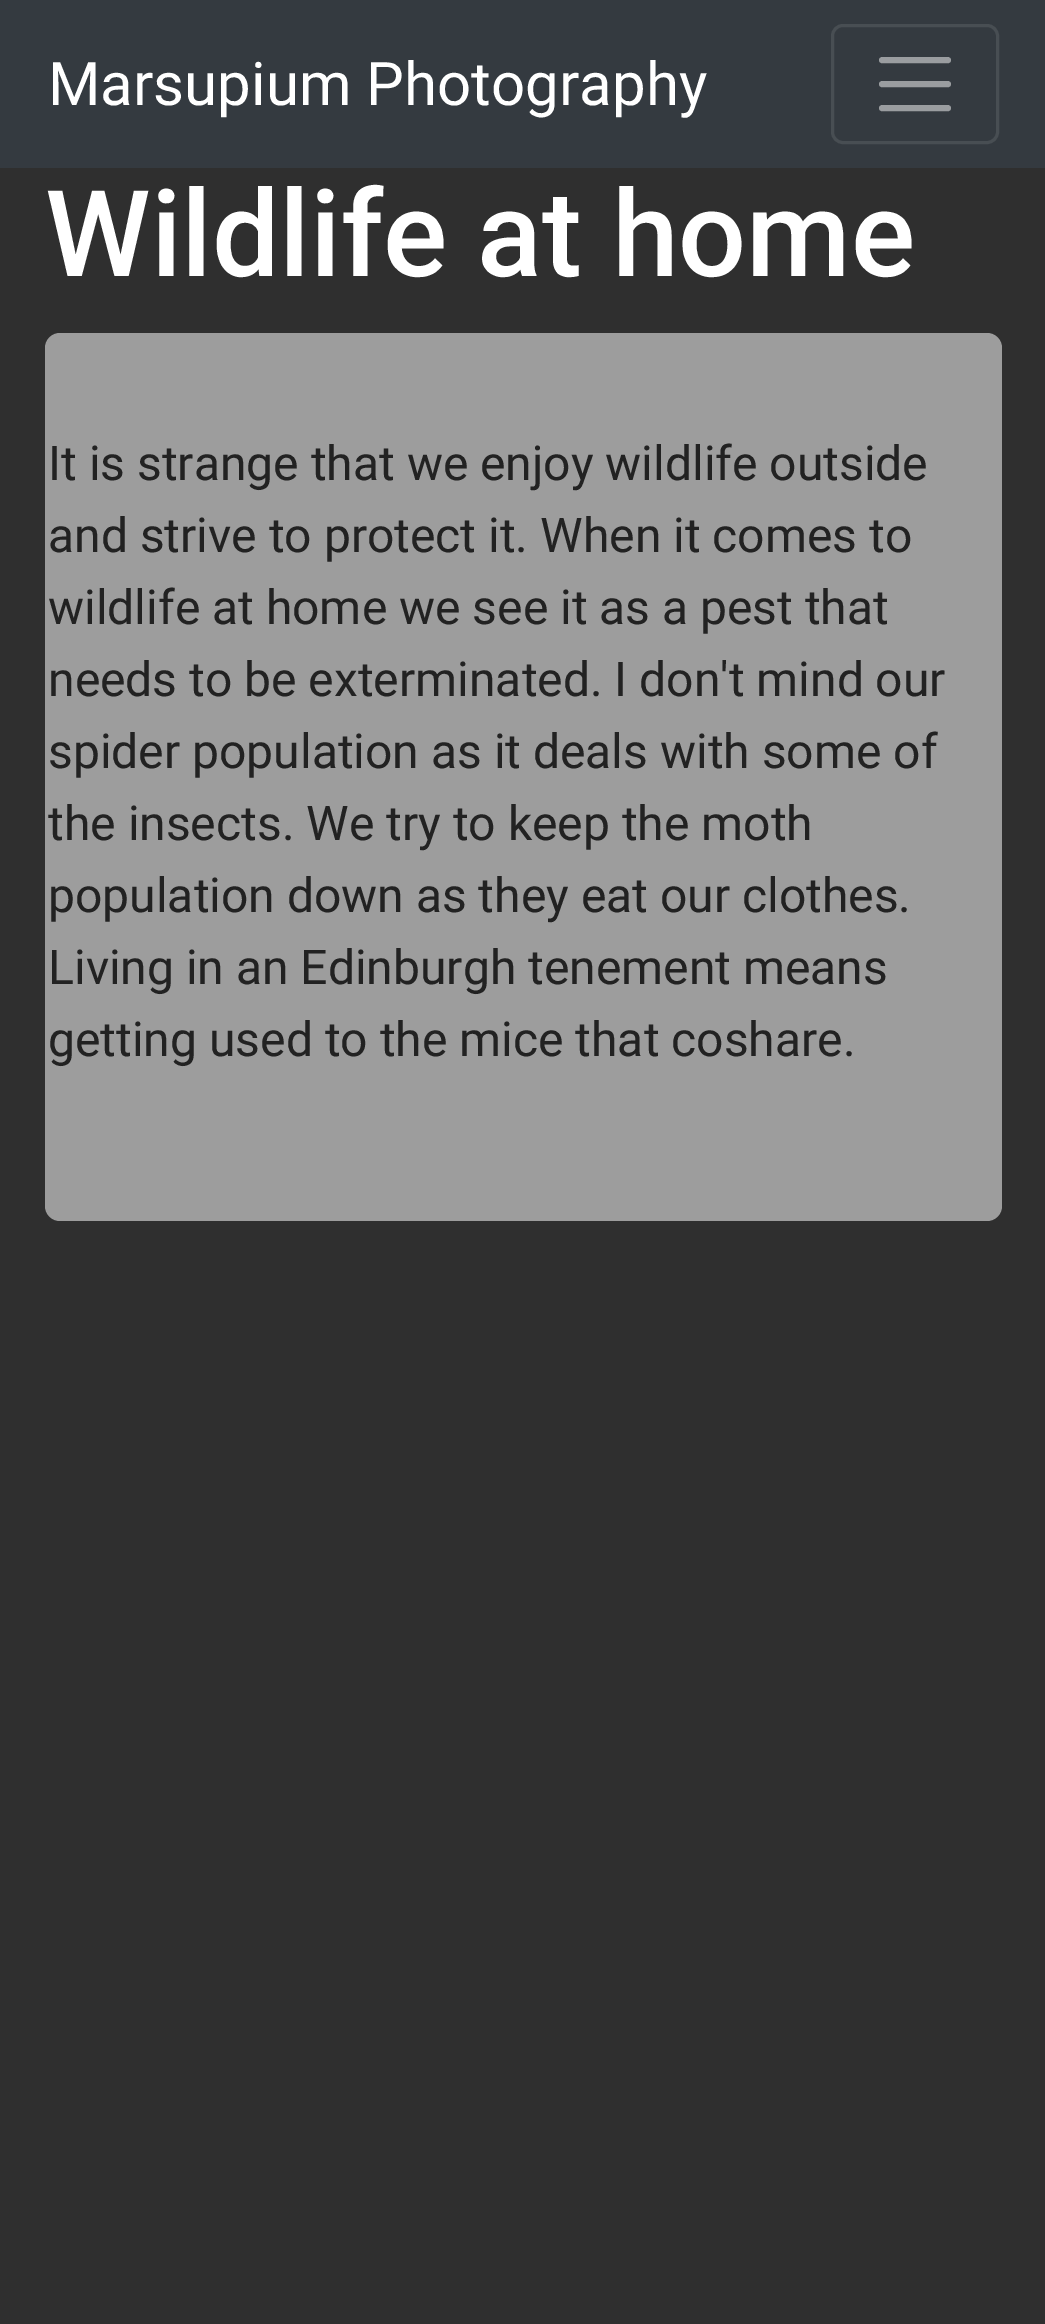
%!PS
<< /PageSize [1045 2324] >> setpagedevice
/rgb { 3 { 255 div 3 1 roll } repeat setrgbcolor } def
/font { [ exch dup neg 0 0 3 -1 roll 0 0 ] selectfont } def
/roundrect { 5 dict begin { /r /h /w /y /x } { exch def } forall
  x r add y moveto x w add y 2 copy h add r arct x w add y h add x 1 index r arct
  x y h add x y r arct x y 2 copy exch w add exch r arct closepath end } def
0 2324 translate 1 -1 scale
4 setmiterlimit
47 47 47 rgb
0 0 1045 2324 rectfill
52 58 64 rgb
0 0 1045 168 rectfill
72 78 83 rgb
3 setlinewidth
832.5 25.5 165 117 10.5 roundrect stroke
154 157 160 rgb
6 setlinewidth
1 setlinecap
882 60 moveto 948 60 lineto 882 84 moveto 948 84 lineto 882 108 moveto 948 108 lineto stroke
157 157 157 rgb
45 333 957 888 15 roundrect fill
/Roboto-Regular 60 font
255 255 255 rgb
48 105 moveto (Marsupium Photography) show
/Roboto-Medium 120 font
45 276 moveto (Wildlife at home) show
/Roboto-Regular 48 font
34 34 34 rgb
[
  [(It is strange that we enjoy wildlife outside) 48 480]
  [(and strive to protect it. When it comes to) 48 552]
  [(wildlife at home we see it as a pest that) 48 624]
  [(needs to be exterminated. I don't mind our) 48 696]
  [(spider population as it deals with some of) 48 768]
  [(the insects. We try to keep the moth) 48 840]
  [(population down as they eat our clothes.) 48 912]
  [(Living in an Edinburgh tenement means) 48 984]
  [(getting used to the mice that coshare.) 48 1056]
] { aload pop moveto show } forall
showpage
